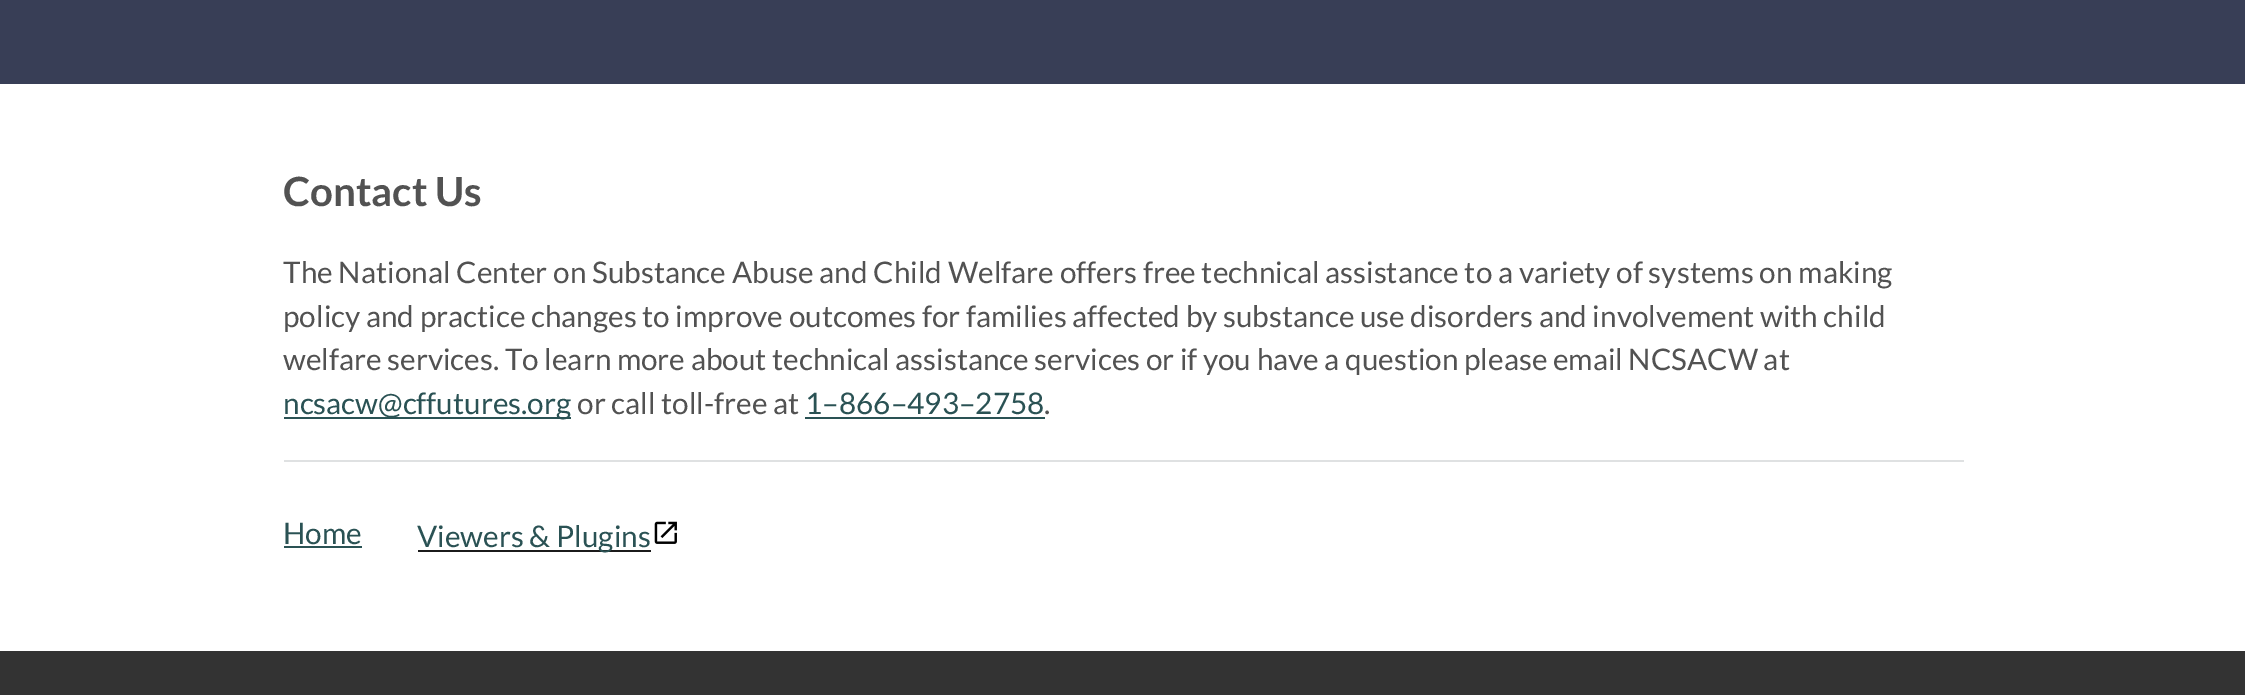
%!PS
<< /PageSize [2245 695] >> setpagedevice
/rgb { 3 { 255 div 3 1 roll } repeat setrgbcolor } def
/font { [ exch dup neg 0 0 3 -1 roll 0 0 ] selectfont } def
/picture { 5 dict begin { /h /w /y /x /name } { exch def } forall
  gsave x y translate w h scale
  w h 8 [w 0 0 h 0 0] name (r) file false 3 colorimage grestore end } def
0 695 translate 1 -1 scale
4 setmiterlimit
255 255 255 rgb
0 0 2245 695 rectfill
[
  [0 0 2245 84 56 62 86]
  [284 460 1680 2 223 225 226]
  [284 417 287 2 42 82 84]
  [805 417 240 2 42 82 84]
  [284 546 78 2 42 82 84]
  [418 550 233 2 27 27 27]
] { aload pop rgb rectfill } forall
(img/1.rgb) 654 521 23 23 picture
51 51 51 rgb
0 651 2245 44 rectfill
/Lato-Bold 40.25 font
82 82 82 rgb
283 206 moveto (Contact Us) show
/Lato-Regular 29.75 font
283 283 moveto (The National Center on Substance Abuse and Child Welfare offers free technical assistance to a variety of systems on making) show
283 327 moveto -0.2 0 32 (policy and practice changes to improve outcomes for families affected by substance use disorders and involvement with child) widthshow
283 370 moveto -0.25 0 32 (welfare services. To learn more about technical assistance services or if you have a question please email NCSACW at) widthshow
42 82 84 rgb
283 414 moveto (ncsacw@cffutures.org) show
82 82 82 rgb
577 414 moveto (or call toll-free at) show
42 82 84 rgb
805 414 moveto (1–866–493–2758) show
82 82 82 rgb
1044 414 moveto (.) show
42 82 84 rgb
283 544 moveto (Home) show
417 547 moveto (Viewers & Plugins) show
showpage
